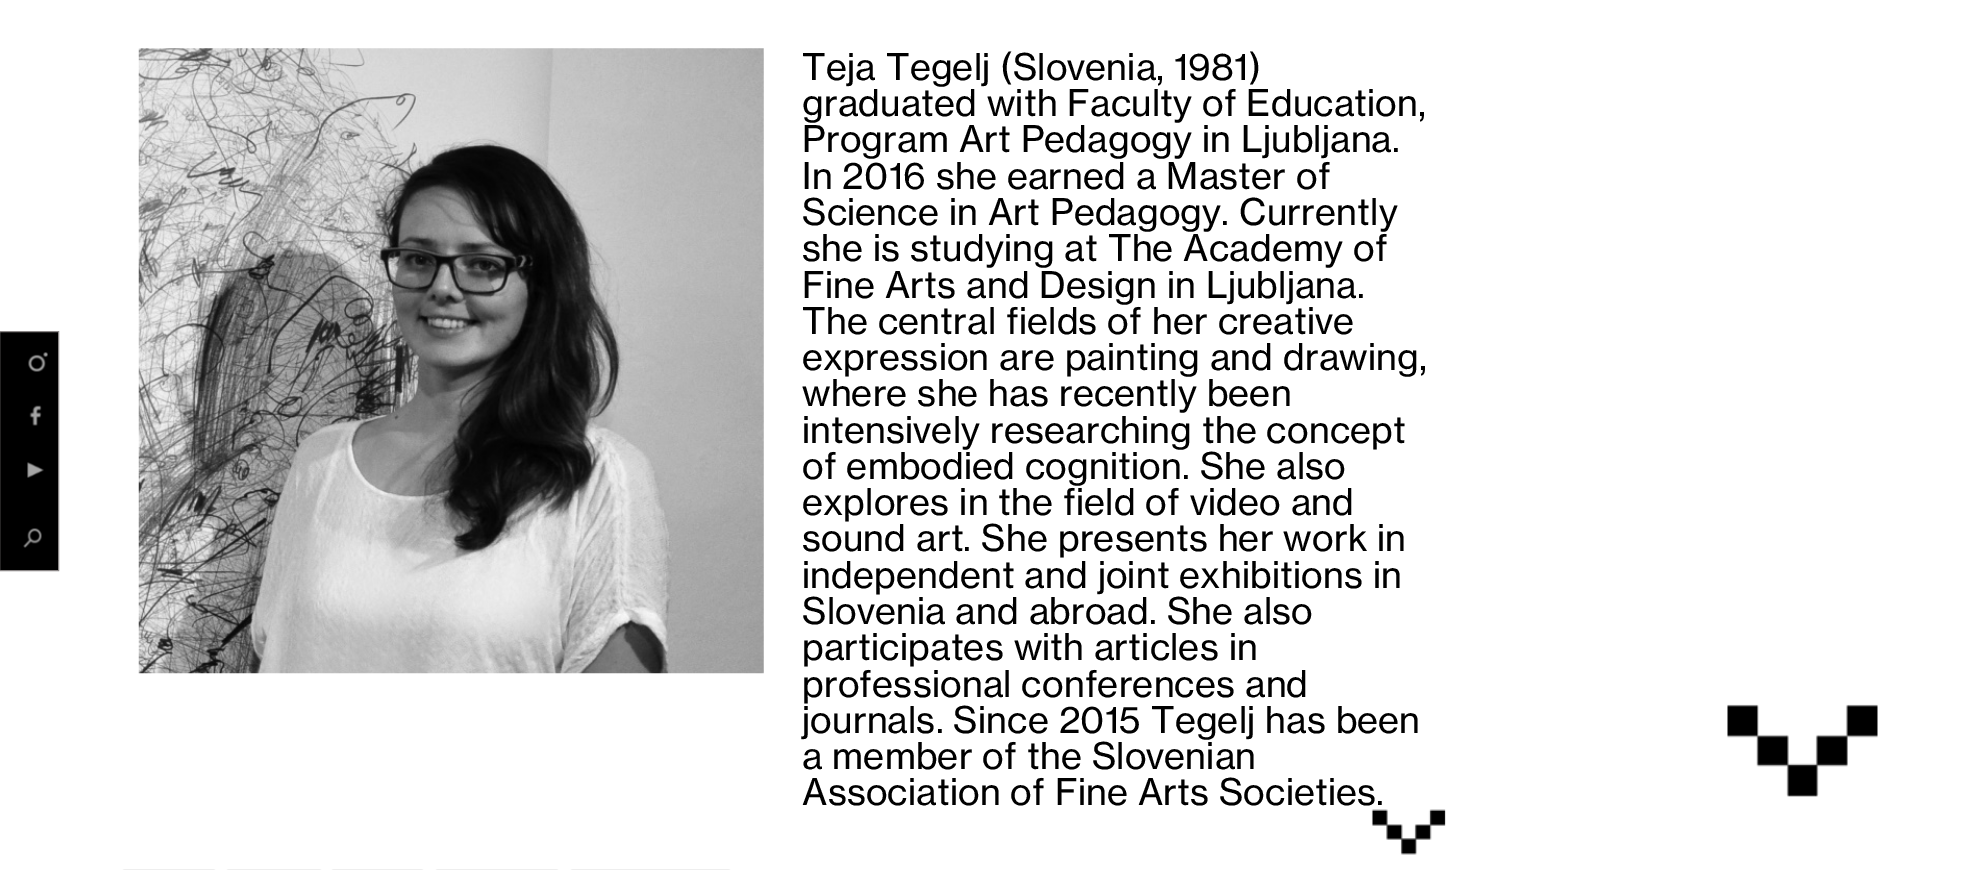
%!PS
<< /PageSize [1979 870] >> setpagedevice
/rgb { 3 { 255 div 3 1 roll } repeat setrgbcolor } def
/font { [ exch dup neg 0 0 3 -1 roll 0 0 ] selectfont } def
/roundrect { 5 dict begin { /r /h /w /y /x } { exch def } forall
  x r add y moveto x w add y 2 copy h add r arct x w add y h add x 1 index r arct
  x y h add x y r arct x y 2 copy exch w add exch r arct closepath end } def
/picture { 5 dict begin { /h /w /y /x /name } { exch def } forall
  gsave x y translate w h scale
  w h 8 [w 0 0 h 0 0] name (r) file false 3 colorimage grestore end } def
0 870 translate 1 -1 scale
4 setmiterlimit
255 255 255 rgb
0 0 1979 870 rectfill
0 0 0 rgb
-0.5 331.5 moveto 58.5 331.5 lineto 58.5 570.5 lineto -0.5 570.5 lineto closepath gsave fill grestore
140 136 136 rgb
stroke
(img/1.rgb) 28 352 20 20 picture
(img/2.rgb) 29 405 13 21 picture
(img/3.rgb) 27 462 17 16 picture
(img/4.rgb) 23 528 19 20 picture
(img/5.rgb) 138 48 626 626 picture
(img/6.rgb) 1371 809 75 46 picture
238 238 238 rgb
3 setlinewidth
121.5 870.5 95 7 4.5 roundrect stroke
225.5 870.5 97 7 4.5 roundrect stroke
330.5 870.5 94 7 4.5 roundrect stroke
434.5 870.5 125 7 4.5 roundrect stroke
569.5 870.5 162 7 4.5 roundrect stroke
(img/7.rgb) 1727 704 151 93 picture
/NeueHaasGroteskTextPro-Regular 36.25 font
0 0 0 rgb
802 80 moveto 0.2 0 (Teja Tegelj \(Slovenia, 1981\)) ashow
802 116 moveto 0.2 0 (graduated with Faculty of Education,) ashow
802 152 moveto 0.2 0 (Program Art Pedagogy in Ljubljana.) ashow
802 189 moveto 0.2 0 (In 2016 she earned a Master of) ashow
802 225 moveto 0.2 0 (Science in Art Pedagogy. Currently) ashow
802 261 moveto 0.2 0 (she is studying at The Academy of) ashow
802 298 moveto 0.2 0 (Fine Arts and Design in Ljubljana.) ashow
802 334 moveto 0.2 0 (The central fields of her creative) ashow
802 370 moveto 0.2 0 (expression are painting and drawing,) ashow
802 406 moveto 0.2 0 (where she has recently been) ashow
802 443 moveto 0.2 0 (intensively researching the concept) ashow
802 479 moveto 0.2 0 (of embodied cognition. She also) ashow
802 515 moveto 0.2 0 (explores in the field of video and) ashow
802 551 moveto 0.2 0 (sound art. She presents her work in) ashow
802 588 moveto 0.2 0 (independent and joint exhibitions in) ashow
802 624 moveto 0.2 0 (Slovenia and abroad. She also) ashow
802 660 moveto 0.2 0 (participates with articles in) ashow
802 697 moveto 0.2 0 (professional conferences and) ashow
802 733 moveto 0.2 0 (journals. Since 2015 Tegelj has been) ashow
802 769 moveto 0.2 0 (a member of the Slovenian) ashow
802 805 moveto 0.2 0 (Association of Fine Arts Societies.) ashow
showpage
